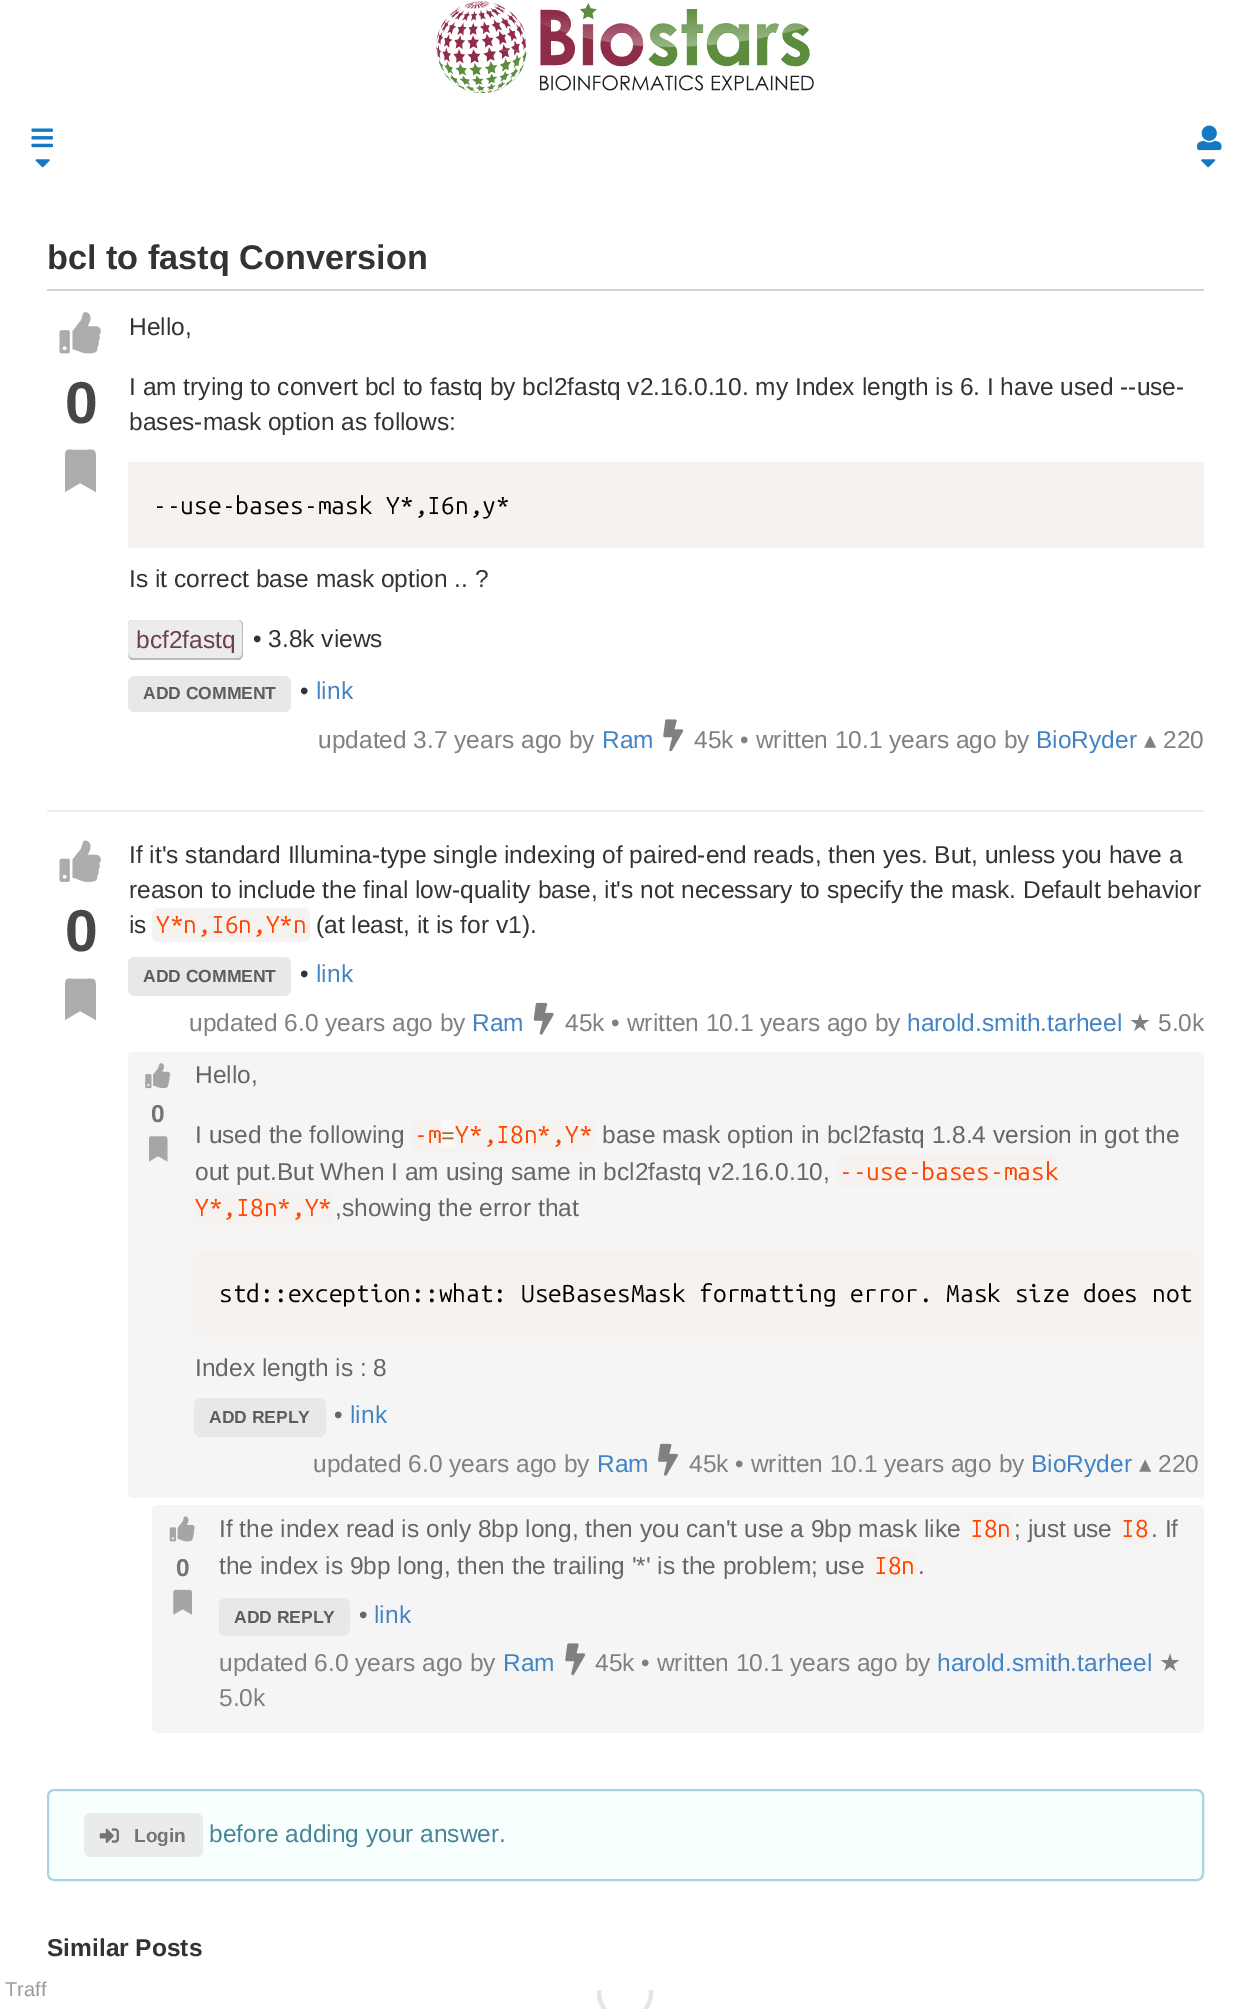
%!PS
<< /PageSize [1251 2009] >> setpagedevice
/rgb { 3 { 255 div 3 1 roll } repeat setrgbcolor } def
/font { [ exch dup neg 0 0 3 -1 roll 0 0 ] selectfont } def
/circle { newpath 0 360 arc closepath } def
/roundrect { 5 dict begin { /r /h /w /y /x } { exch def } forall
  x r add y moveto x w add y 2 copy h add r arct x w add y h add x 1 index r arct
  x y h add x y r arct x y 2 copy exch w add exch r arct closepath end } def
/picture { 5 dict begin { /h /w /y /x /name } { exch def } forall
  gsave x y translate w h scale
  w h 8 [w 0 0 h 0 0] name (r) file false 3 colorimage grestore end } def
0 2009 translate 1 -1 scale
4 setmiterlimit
255 255 255 rgb
0 0 1251 2009 rectfill
(img/1.rgb) 436 1 378 93 picture
(img/2.rgb) 31 128 22 20 picture
(img/3.rgb) 35 159 15 9 picture
(img/4.rgb) 1197 125 25 26 picture
(img/5.rgb) 1201 159 15 9 picture
236 236 236 rgb
47 810 1157 2 rectfill
211 211 211 rgb
47 289 1157 2 rectfill
(img/6.rgb) 59 312 42 42 picture
172 172 172 rgb
65 492 moveto 65 460 lineto 65 447 66 450 80 450 curveto 94 450 96 447 96 460 curveto 96 492 lineto 80 483 lineto closepath fill
245 242 240 rgb
128 462 1076 86 rectfill
236 236 236 rgb
128 620 115 40 5 roundrect fill
187 187 187 rgb
133 620 moveto 238 620 lineto 241 620 243 622 243 625 curveto 243 654 lineto 243 657 241 660 238 660 curveto 133 660 lineto 130 660 128 657 128 654 curveto 128 625 lineto 128 622 130 620 133 620 curveto closepath 133 620 moveto 238 620 lineto 240 620 242 622 242 625 curveto 242 654 lineto 242 656 240 658 238 658 curveto 133 658 lineto 130 658 128 656 128 654 curveto 128 625 lineto 128 622 130 620 133 620 curveto closepath eofill
232 232 232 rgb
128 676 163 36 7 roundrect fill
(img/7.rgb) 663 719 21 33 picture
(img/8.rgb) 59 840 42 42 picture
172 172 172 rgb
65 1020 moveto 65 989 lineto 65 976 66 979 80 979 curveto 94 979 96 976 96 989 curveto 96 1020 lineto 80 1011 lineto closepath fill
245 242 240 rgb
152 908 158 34 7 roundrect fill
232 232 232 rgb
128 957 163 39 7 roundrect fill
(img/9.rgb) 533 1002 21 33 picture
245 245 245 rgb
128 1052 1076 446 5 roundrect fill
(img/10.rgb) 145 1063 26 26 picture
166 166 166 rgb
149 1161.5 moveto 149 1142.5 lineto 149 1134.5 149.5 1136.5 158 1136.5 curveto 166.5 1136.5 167.5 1134.5 167.5 1142.5 curveto 167.5 1161.5 lineto 158 1156 lineto closepath fill
245 242 240 rgb
418 1118 moveto 441 1118 lineto 441 1152 lineto 418 1152 lineto 414 1152 411 1149 411 1145 curveto 411 1125 lineto 411 1121 414 1118 418 1118 curveto closepath fill
441 1118 14 34 rectfill
455 1118 moveto 588 1118 lineto 592 1118 595 1121 595 1125 curveto 595 1145 lineto 595 1149 592 1152 588 1152 curveto 455 1152 lineto closepath fill
844 1155 moveto 1059 1155 lineto 1059 1188 lineto 844 1188 lineto 840 1188 837 1185 837 1181 curveto 837 1162 lineto 837 1158 840 1155 844 1155 curveto closepath fill
194 1192 moveto 327 1192 lineto 331 1192 334 1195 334 1199 curveto 334 1218 lineto 334 1222 331 1225 327 1225 curveto 194 1225 lineto closepath fill
194 1251 1005 86 rectfill
232 232 232 rgb
194 1398 132 39 7 roundrect fill
(img/11.rgb) 658 1443 20 33 picture
245 245 245 rgb
152 1505 1052 228 5 roundrect fill
(img/12.rgb) 169 1516 26 26 picture
(img/13.rgb) 173 1589 19 26 picture
245 242 240 rgb
968 1512 45 33 7 roundrect fill
1118 1512 34 33 7 roundrect fill
872 1549 45 33 7 roundrect fill
232 232 232 rgb
219 1598 131 38 7 roundrect fill
(img/14.rgb) 565 1643 21 33 picture
248 255 255 rgb
48 1790 1155 90 6 roundrect gsave fill grestore
169 213 222 rgb
2 setlinewidth
stroke
234 235 235 rgb
84 1813 119 44 7 roundrect fill
(img/15.rgb) 99 1828 20 15 picture
gsave
47 1990 1157 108 rectclip
229 229 229 rgb
4 setlinewidth
625 1993 26 circle stroke
grestore
/LiberationSans-Bold 34.25 font
51 51 51 rgb
47 269 moveto (bcl to fastq Conversion) show
/LiberationSans-Bold 59 font
71 71 71 rgb
65 423 moveto (0) show
/LiberationSans-Regular 24.5 font
51 51 51 rgb
[
  [(Hello,) 129 335]
  [(I am trying to convert bcl to fastq by bcl2fastq v2.16.0.10. my Index length is 6. I have used --use-) 129 395]
  [(bases-mask option as follows:) 129 430]
] { aload pop moveto show } forall
/UbuntuMono-Regular 24.5 font
0 0 0 rgb
153 514 moveto (--use-bases-mask Y*,I6n,y*) show
/LiberationSans-Regular 24.5 font
51 51 51 rgb
129 587 moveto (Is it correct base mask option .. ?) show
107 62 74 rgb
136 648 moveto (bcf2fastq) show
51 51 51 rgb
253 647 moveto (• 3.8k views) show
/LiberationSans-Bold 17.5 font
93 93 93 rgb
143 699 moveto (ADD COMMENT) show
/LiberationSans-Regular 24.5 font
51 51 51 rgb
300 699 moveto (•) show
65 131 196 rgb
316 699 moveto (link) show
128 128 128 rgb
318 748 moveto (updated 3.7 years ago by) show
65 131 196 rgb
602 748 moveto (Ram) show
128 128 128 rgb
694 748 moveto (45k • written 10.1 years ago by) show
65 131 196 rgb
1036 748 moveto (BioRyder) show
/DejaVuSans-Regular 24.5 font
128 128 128 rgb
1144 748 moveto (▴) show
/LiberationSans-Regular 24.5 font
1163 748 moveto (220) show
/LiberationSans-Bold 59 font
71 71 71 rgb
65 951 moveto (0) show
/LiberationSans-Regular 24.5 font
51 51 51 rgb
[
  [(If it's standard Illumina-type single indexing of paired-end reads, then yes. But, unless you have a) 129 863]
  [(reason to include the final low-quality base, it's not necessary to specify the mask. Default behavior) 129 898]
  [(is) 129 933]
] { aload pop moveto show } forall
/UbuntuMono-Regular 24.5 font
255 69 0 rgb
156 933 moveto (Y*n,I6n,Y*n) show
/LiberationSans-Regular 24.5 font
51 51 51 rgb
316 933 moveto (\(at least, it is for v1\).) show
/LiberationSans-Bold 17.5 font
93 93 93 rgb
143 982 moveto (ADD COMMENT) show
/LiberationSans-Regular 24.5 font
51 51 51 rgb
300 982 moveto (•) show
65 131 196 rgb
316 982 moveto (link) show
128 128 128 rgb
189 1031 moveto (updated 6.0 years ago by) show
65 131 196 rgb
472 1031 moveto (Ram) show
128 128 128 rgb
565 1031 moveto (45k • written 10.1 years ago by) show
65 131 196 rgb
907 1031 moveto (harold.smith.tarheel) show
/DejaVuSans-Regular 24.5 font
128 128 128 rgb
1129 1031 moveto (★) show
/LiberationSans-Regular 24.5 font
1158 1031 moveto (5.0k) show
/LiberationSans-Bold 24.5 font
116 116 116 rgb
151 1122 moveto (0) show
/LiberationSans-Regular 24.5 font
102 102 102 rgb
195 1083 moveto (Hello,) show
195 1143 moveto (I used the following) show
/UbuntuMono-Regular 24.5 font
255 69 0 rgb
414 1143 moveto (-m Y*,I8n*,Y*) show
250 249 248 rgb
441 1120 14 28 rectfill
/LiberationSans-Regular 24.5 font
102 102 102 rgb
602 1143 moveto (base mask option in bcl2fastq 1.8.4 version in got the) show
/UbuntuMono-Regular 24.5 font
154 110 58 rgb
441 1143 moveto (=) show
/LiberationSans-Regular 24.5 font
102 102 102 rgb
195 1180 moveto (out put.But When I am using same in bcl2fastq v2.16.0.10,) show
/UbuntuMono-Regular 24.5 font
255 69 0 rgb
839 1180 moveto (--use-bases-mask) show
195 1216 moveto (Y*,I8n*,Y*) show
/LiberationSans-Regular 24.5 font
102 102 102 rgb
335 1216 moveto (,showing the error that) show
/UbuntuMono-Regular 24.5 font
0 0 0 rgb
219 1302 moveto (std::exception::what: UseBasesMask formatting error. Mask size does not) show
/LiberationSans-Regular 24.5 font
102 102 102 rgb
195 1376 moveto (Index length is : 8) show
/LiberationSans-Bold 17.5 font
93 93 93 rgb
209 1423 moveto (ADD REPLY) show
/LiberationSans-Regular 24.5 font
102 102 102 rgb
334 1423 moveto (•) show
65 131 196 rgb
350 1423 moveto (link) show
128 128 128 rgb
313 1472 moveto (updated 6.0 years ago by) show
65 131 196 rgb
597 1472 moveto (Ram) show
128 128 128 rgb
689 1472 moveto (45k • written 10.1 years ago by) show
65 131 196 rgb
1031 1472 moveto (BioRyder) show
/DejaVuSans-Regular 24.5 font
128 128 128 rgb
1139 1472 moveto (▴) show
/LiberationSans-Regular 24.5 font
1158 1472 moveto (220) show
/LiberationSans-Bold 24.5 font
116 116 116 rgb
176 1576 moveto (0) show
/LiberationSans-Regular 24.5 font
102 102 102 rgb
219 1537 moveto (If the index read is only 8bp long, then you can't use a 9bp mask like) show
/UbuntuMono-Regular 24.5 font
255 69 0 rgb
970 1537 moveto (I8n) show
/LiberationSans-Regular 24.5 font
102 102 102 rgb
1014 1537 moveto (; just use) show
/UbuntuMono-Regular 24.5 font
255 69 0 rgb
1121 1537 moveto (I8) show
/LiberationSans-Regular 24.5 font
102 102 102 rgb
1151 1537 moveto (. If) show
219 1574 moveto (the index is 9bp long, then the trailing '*' is the problem; use) show
/UbuntuMono-Regular 24.5 font
255 69 0 rgb
874 1574 moveto (I8n) show
/LiberationSans-Regular 24.5 font
102 102 102 rgb
918 1574 moveto (.) show
/LiberationSans-Bold 17.5 font
93 93 93 rgb
234 1623 moveto (ADD REPLY) show
/LiberationSans-Regular 24.5 font
102 102 102 rgb
359 1623 moveto (•) show
65 131 196 rgb
374 1623 moveto (link) show
128 128 128 rgb
219 1671 moveto (updated 6.0 years ago by) show
65 131 196 rgb
503 1671 moveto (Ram) show
128 128 128 rgb
595 1671 moveto (45k • written 10.1 years ago by) show
65 131 196 rgb
937 1671 moveto (harold.smith.tarheel) show
/DejaVuSans-Regular 24.5 font
128 128 128 rgb
1159 1671 moveto (★) show
/LiberationSans-Regular 24.5 font
219 1706 moveto (5.0k) show
/LiberationSans-Bold 19 font
116 116 116 rgb
134 1842 moveto (Login) show
/LiberationSans-Regular 24.5 font
70 133 152 rgb
209 1842 moveto (before adding your answer.) show
/LiberationSans-Bold 24.5 font
51 51 51 rgb
47 1956 moveto (Similar Posts) show
/LiberationSans-Regular 20 font
153 153 153 rgb
5 1996 moveto (Traff) show
showpage
